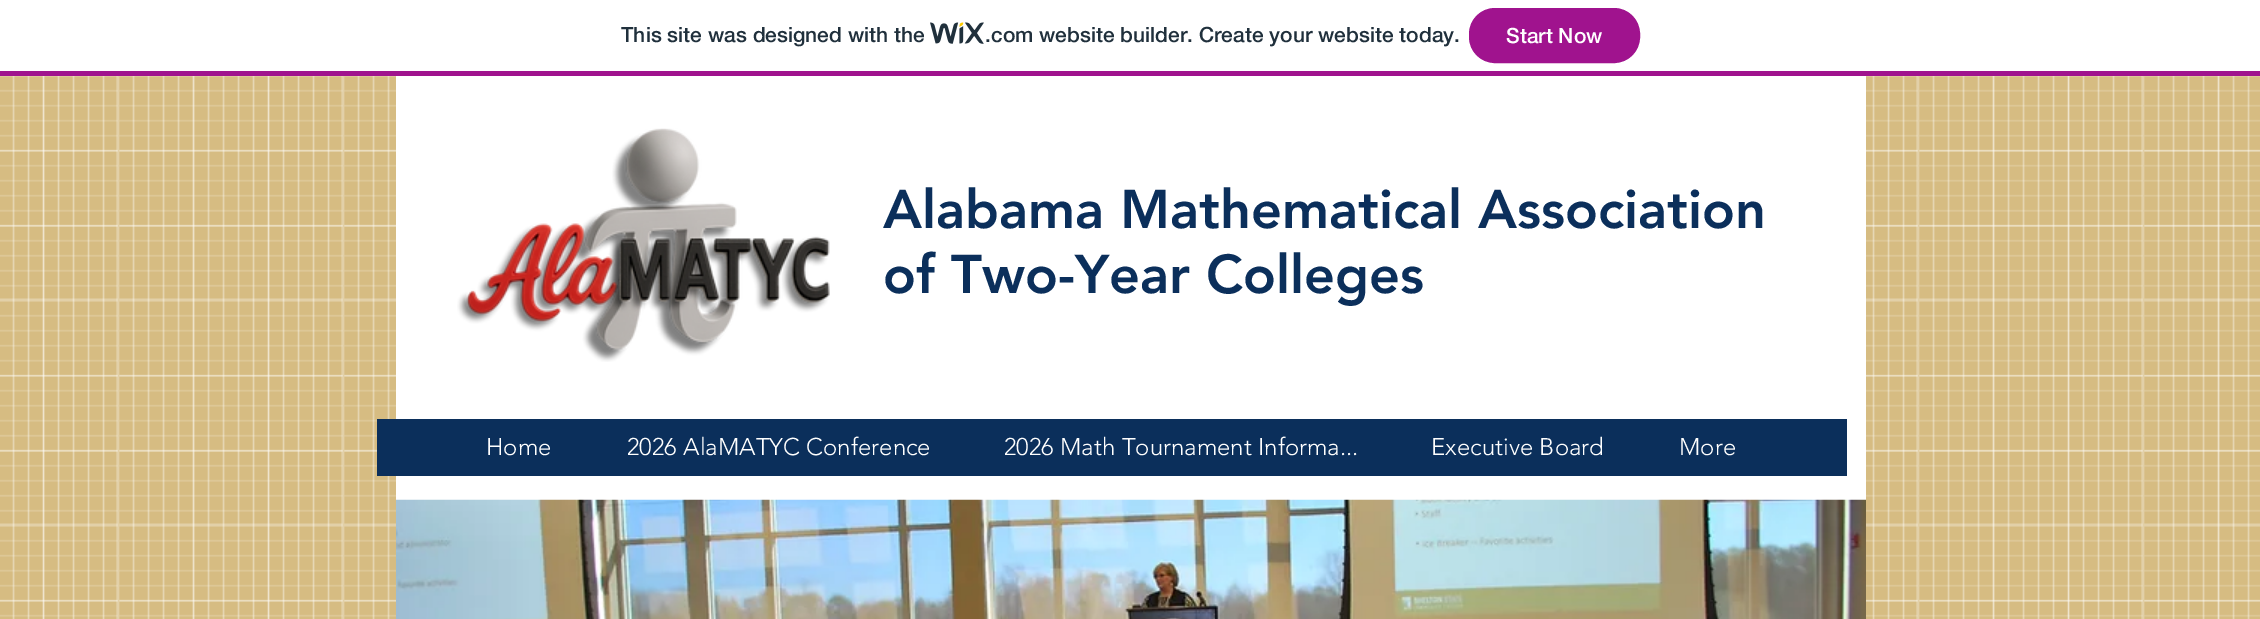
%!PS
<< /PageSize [2260 619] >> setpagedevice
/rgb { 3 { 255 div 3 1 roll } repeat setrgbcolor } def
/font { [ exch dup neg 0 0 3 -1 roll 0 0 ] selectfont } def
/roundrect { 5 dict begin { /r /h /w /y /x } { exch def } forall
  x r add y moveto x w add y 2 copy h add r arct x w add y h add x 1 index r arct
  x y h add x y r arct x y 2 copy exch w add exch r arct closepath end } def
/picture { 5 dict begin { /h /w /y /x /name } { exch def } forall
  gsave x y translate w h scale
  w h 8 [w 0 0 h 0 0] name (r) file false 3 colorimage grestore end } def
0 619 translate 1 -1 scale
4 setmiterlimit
255 255 255 rgb
0 0 2260 619 rectfill
160 19 142 rgb
0 71 2260 5 rectfill
(img/1.rgb) 930 22 54 22 picture
1470 9 169 53 25 roundrect gsave fill grestore
2 setlinewidth
stroke
214 188 130 rgb
0 76 2260 543 rectfill
(img/2.rgb) 0 76 2260 543 picture
255 255 255 rgb
396 76 1470 424 rectfill
(img/3.rgb) 457 128 373 234 picture
11 47 91 rgb
377 419 1470 57 rectfill
(img/4.rgb) 396 499 1470 120 picture
/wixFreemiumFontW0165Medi-Medium 21 font
32 48 60 rgb
621 42 moveto (This site was designed with the) show
985 42 moveto (.com website builder. Create your website today.) show
255 255 255 rgb
1506 43 moveto (Start Now) show
/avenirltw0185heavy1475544-Black 54 font
11 47 91 rgb
883 228 moveto (Alabama Mathematical Association) show
883 293 moveto (of Two-Year Colleges) show
/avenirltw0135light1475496-Light 24 font
255 255 255 rgb
[
  [(Home) 486 455]
  [(2026 AlaMATYC Conference) 627 455]
  [(2026 Math Tournament Informa...) 1004 455]
  [(Executive Board) 1431 455]
  [(More) 1679 455]
] { aload pop moveto show } forall
showpage
